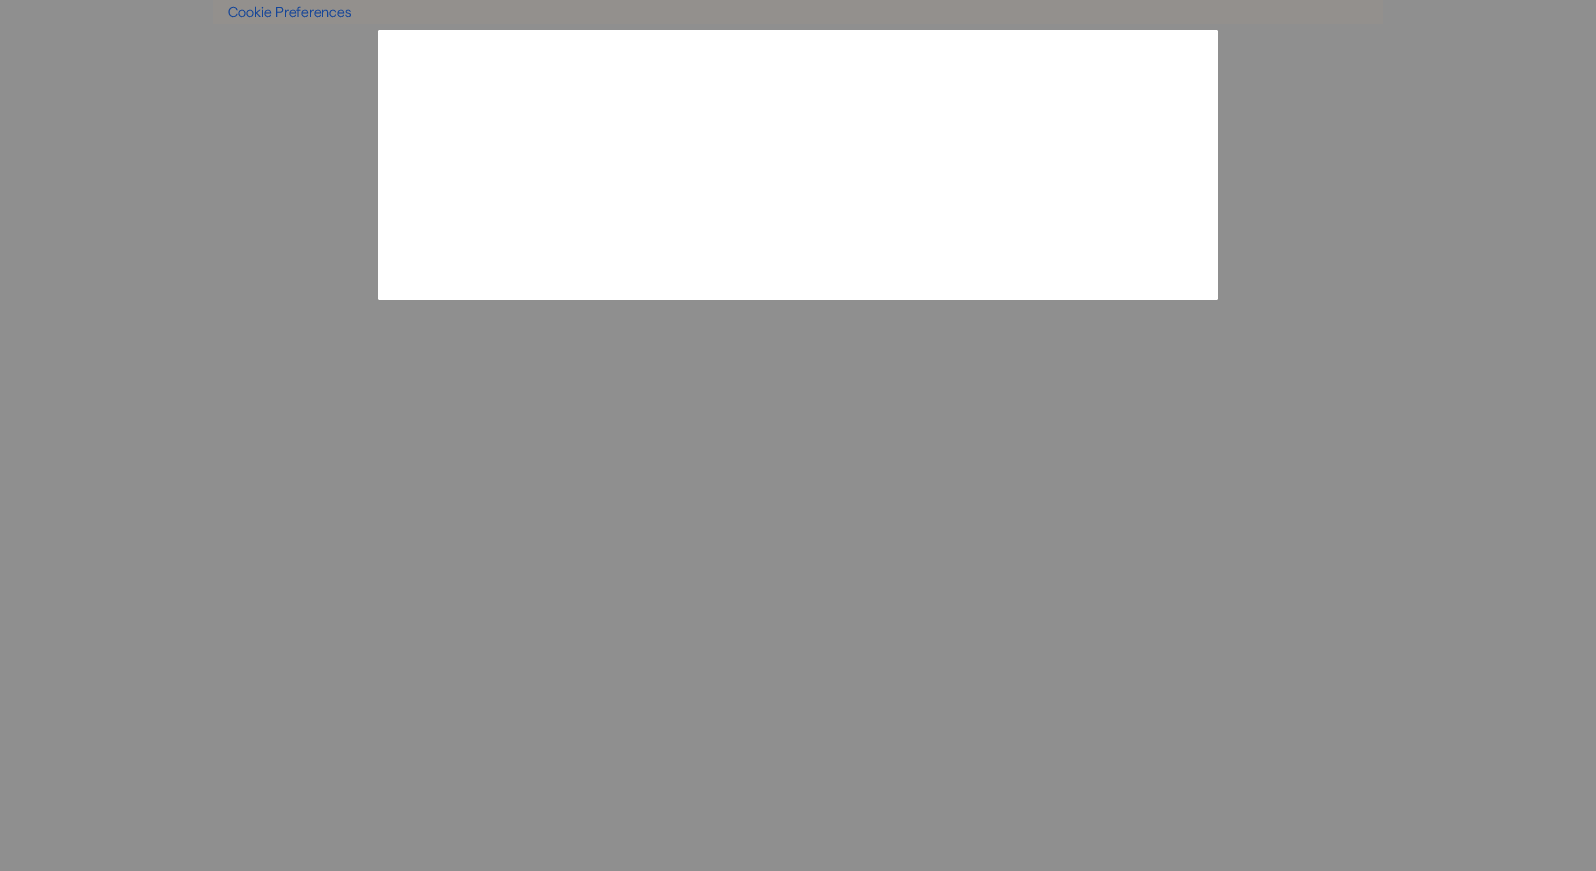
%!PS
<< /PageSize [1596 871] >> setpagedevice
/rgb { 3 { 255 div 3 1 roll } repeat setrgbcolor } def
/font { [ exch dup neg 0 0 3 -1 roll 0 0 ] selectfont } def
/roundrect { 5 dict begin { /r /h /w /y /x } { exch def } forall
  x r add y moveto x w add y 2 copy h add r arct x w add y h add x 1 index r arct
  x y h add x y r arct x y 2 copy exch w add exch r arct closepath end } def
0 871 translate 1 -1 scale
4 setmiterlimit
143 143 143 rgb
0 0 1596 871 rectfill
147 144 141 rgb
213 0 1170 24 rectfill
255 255 255 rgb
378 30 840 270 2 roundrect fill
/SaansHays-Regular 14 font
20 69 153 rgb
228 17 moveto (Cookie Preferences) show
showpage
